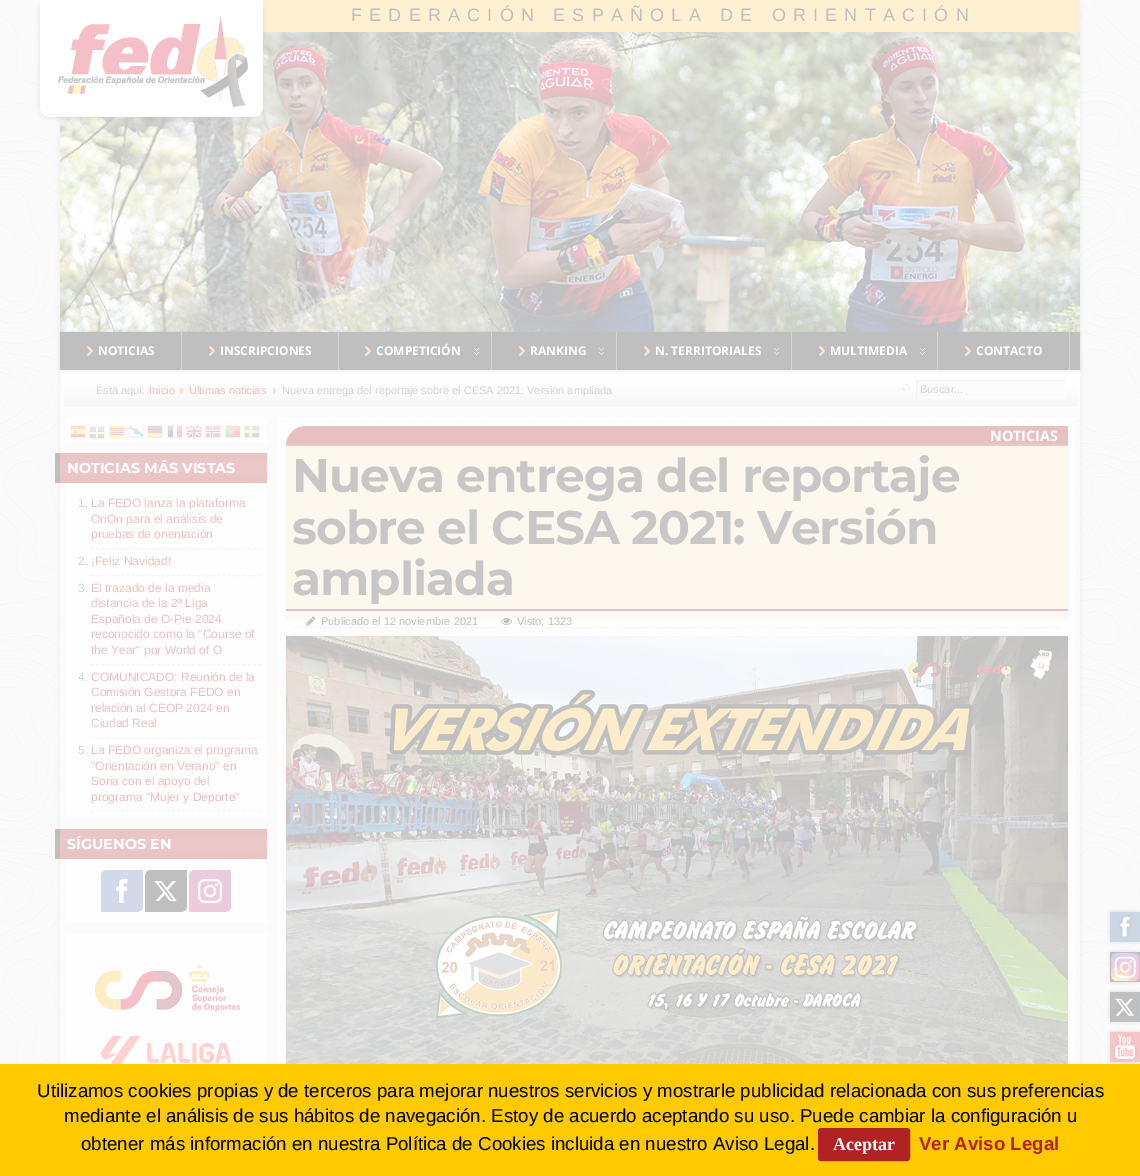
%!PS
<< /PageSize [1140 1176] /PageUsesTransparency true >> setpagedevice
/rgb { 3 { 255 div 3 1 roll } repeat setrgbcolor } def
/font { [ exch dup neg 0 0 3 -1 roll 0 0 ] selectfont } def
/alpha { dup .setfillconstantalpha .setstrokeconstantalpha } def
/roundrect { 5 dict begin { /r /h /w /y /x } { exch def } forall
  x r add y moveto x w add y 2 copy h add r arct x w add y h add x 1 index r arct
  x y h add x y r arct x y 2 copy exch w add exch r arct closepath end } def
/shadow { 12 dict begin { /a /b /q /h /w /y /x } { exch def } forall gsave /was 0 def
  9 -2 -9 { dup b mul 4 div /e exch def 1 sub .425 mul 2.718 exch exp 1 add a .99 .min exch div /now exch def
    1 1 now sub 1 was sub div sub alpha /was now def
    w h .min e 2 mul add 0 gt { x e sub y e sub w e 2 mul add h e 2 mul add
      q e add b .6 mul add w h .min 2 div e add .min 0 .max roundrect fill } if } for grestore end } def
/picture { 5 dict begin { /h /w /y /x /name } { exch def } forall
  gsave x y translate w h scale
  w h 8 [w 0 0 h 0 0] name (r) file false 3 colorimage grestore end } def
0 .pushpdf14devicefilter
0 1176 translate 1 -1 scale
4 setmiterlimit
255 255 255 rgb
0 0 1140 1176 rectfill
(img/1.rgb) 0 0 1140 1064 picture
191 191 191 rgb
59 2 1022 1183 0 3 0.2 shadow
251 251 251 rgb
60 370 1020 694 rectfill
254 240 209 rgb
263 0 817 32 rectfill
(img/3.rgb) 60 32 1020 300 picture
191 191 191 rgb
40 1 223 117 10 2.5 0.4 shadow
255 255 255 rgb
40 0 moveto 263 0 lineto 263 107 lineto 263 112.5 258.5 117 253 117 curveto 50 117 lineto 44.5 117 40 112.5 40 107 curveto closepath fill
(img/2.rgb) 58 16 191 92 picture
254 254 254 rgb
63 374 1015 33 rectfill
(img/6.rgb) 63 386 1015 21 picture
255 255 255 rgb
62.5 373.5 1016 34 rectstroke
191 191 191 rgb
60 332 1020 38 0 1 0.5 shadow
60 332 1020 38 rectfill
213 213 213 rgb
181 332 1 38 rectfill
(img/4.rgb) 87 346 6 10 picture
338 332 1 38 rectfill
(img/4.rgb) 209 346 6 10 picture
491 332 1 38 rectfill
(img/5.rgb) 474 348 5 7 picture
(img/4.rgb) 365 346 6 10 picture
616 332 1 38 rectfill
(img/5.rgb) 599 348 5 7 picture
(img/4.rgb) 519 346 6 10 picture
791 332 1 38 rectfill
(img/5.rgb) 774 348 5 7 picture
(img/4.rgb) 644 346 6 10 picture
937 332 1 38 rectfill
(img/5.rgb) 920 348 5 7 picture
(img/4.rgb) 819 346 6 10 picture
1069 332 1 38 rectfill
(img/4.rgb) 965 346 6 10 picture
(img/7.rgb) 180 387 4 7 picture
(img/7.rgb) 273 387 4 7 picture
(img/8.rgb) 895 383 16 13 picture
[
  [917 381 148 5 251 251 251]
  [916 380 150 1 242 242 242]
  [1065 380 1 18 255 255 255]
  [916 397 150 1 255 255 255]
  [916 380 1 18 242 242 242]
  [65 418 202 25 254 254 254]
] { aload pop rgb rectfill } forall
(img/9.rgb) 70 425 16 14 picture
(img/10.rgb) 89 426 16 14 picture
(img/11.rgb) 110 425 14 14 picture
(img/12.rgb) 128 425 16 14 picture
(img/13.rgb) 147 425 16 14 picture
(img/14.rgb) 167 425 16 14 picture
(img/15.rgb) 186 425 16 14 picture
(img/16.rgb) 205 425 16 14 picture
(img/17.rgb) 225 425 16 14 picture
(img/18.rgb) 244 425 16 14 picture
233 192 192 rgb
60 453 207 30 rectfill
(img/19.rgb) 60 453 207 30 picture
191 191 191 rgb
55 453 5 30 rectfill
254 254 254 rgb
65 483 202 336 rectfill
242 242 242 rgb
[3 2.06] 0 setdash
91 548.5 moveto 261 548.5 lineto stroke
91 575.5 moveto 261 575.5 lineto stroke
91 664.5 moveto 261 664.5 lineto stroke
91 737.5 moveto 261 737.5 lineto stroke
91 810.5 moveto 261 810.5 lineto stroke
233 192 192 rgb
60 829 207 30 rectfill
(img/19.rgb) 60 829 207 30 picture
191 191 191 rgb
55 829 5 30 rectfill
254 254 254 rgb
65 859 202 64 rectfill
210 217 234 rgb
107 870 moveto 143 870 lineto 143 906 lineto 143 909.5 140.5 912 137 912 curveto 101 912 lineto 101 876 lineto 101 872.5 103.5 870 107 870 curveto closepath fill
191 191 191 rgb
151 870 moveto 187 870 lineto 187 906 lineto 187 909.5 184.5 912 181 912 curveto 145 912 lineto 145 876 lineto 145 872.5 147.5 870 151 870 curveto closepath fill
238 203 220 rgb
195 870 moveto 231 870 lineto 231 906 lineto 231 909.5 228.5 912 225 912 curveto 189 912 lineto 189 876 lineto 189 872.5 191.5 870 195 870 curveto closepath fill
(img/20.rgb) 116 879 12 24 picture
(img/21.rgb) 154 881 23 20 picture
(img/22.rgb) 198 879 24 24 picture
254 254 254 rgb
65 933 202 131 rectfill
(img/23.rgb) 95 964 145 48 picture
(img/24.rgb) 101 1036 130 28 picture
278 420 798 644 rectfill
(img/25.rgb) 277 418 800 646 picture
255 255 255 rgb
277 418 moveto 1077 418 lineto 1076 420 lineto 278 420 lineto closepath fill
250 250 250 rgb
1077 418 moveto 1077 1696 lineto 1076 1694 lineto 1076 420 lineto closepath fill
277 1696 moveto 277 418 lineto 278 420 lineto 278 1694 lineto closepath fill
233 192 192 rgb
306 426 moveto 1068 426 lineto 1068 446 lineto 286 446 lineto 286 435 295 426 306 426 curveto closepath fill
242 242 242 rgb
286 447 782 165 0 2 1 shadow
253 248 237 rgb
286 446 782 163 rectfill
233 192 192 rgb
286 609 782 2 rectfill
gsave
286 613 moveto 1068 613 lineto 1068 621.5 1061.5 628 1053 628 curveto 301 628 lineto 292.5 628 286 621.5 286 613 curveto closepath clip newpath
gsave 286 613 moveto 1068 613 lineto 1068 627 lineto 286 627 lineto closepath clip newpath
<< /ShadingType 2 /ColorSpace /DeviceRGB /Coords [677 613 677 627] /Extend [true true] /Function << /FunctionType 2 /Domain [0 1] /C0 [0.976 0.976 0.945] /C1 [1 1 1] /N 1 >> >> shfill grestore
grestore
245 245 245 rgb
294 627 767 1 rectfill
(img/26.rgb) 306 616 10 10 picture
(img/27.rgb) 501 617 11 8 picture
(img/28.rgb) 286 636 782 428 picture
(img/29.rgb) 1107 909 33 36 picture
(img/30.rgb) 1107 949 33 36 picture
(img/31.rgb) 1107 989 33 36 picture
(img/32.rgb) 1107 1029 33 35 picture
255 203 0 rgb
0 1064 1140 112 rectfill
177 35 35 rgb
818.5 1128.5 91 32 2.5 roundrect gsave fill grestore
[] 0 setdash
stroke
/LiberationSans-Regular 18 font
191 191 191 rgb
351 21 moveto 7.2 0 (FEDERACIÓN ESPAÑOLA DE ORIENTACIÓN) ashow
/OpenSans-Bold 12 font
255 255 255 rgb
[
  [(NOTICIAS) 98 355]
  [(INSCRIPCIONES) 220 355]
  [(COMPETICIÓN) 376 355]
  [(RANKING) 530 355]
  [(N. TERRITORIALES) 655 355]
  [(MULTIMEDIA) 830 355]
  [(CONTACTO) 976 355]
] { aload pop moveto show } forall
/LiberationSans-Regular 11 font
211 211 211 rgb
96 394 moveto (Está aquí:) show
233 192 192 rgb
149 394 moveto (Inicio) show
189 394 moveto (Últimas noticias) show
211 211 211 rgb
282 394 moveto (Nueva entrega del reportaje sobre el CESA 2021: Versión ampliada) show
920 393 moveto (Buscar...) show
/Montserrat-Bold 14.4 font
255 255 255 rgb
67 473 moveto (NOTICIAS MÁS VISTAS) show
/LiberationSans-Regular 12 font
211 211 211 rgb
78 507 moveto (1.) show
233 192 192 rgb
[
  [(La FEDO lanza la plataforma) 91 507]
  [(OriOn para el análisis de) 91 523]
  [(pruebas de orientación) 91 538]
] { aload pop moveto show } forall
211 211 211 rgb
78 565 moveto (2.) show
233 192 192 rgb
91 565 moveto (¡Feliz Navidad!) show
211 211 211 rgb
78 592 moveto (3.) show
233 192 192 rgb
[
  [(El trazado de la media) 91 592]
  [(distancia de la 2ª Liga) 91 607]
  [(Española de O-Pie 2024) 91 623]
  [(reconocido como la "Course of) 91 638]
  [(the Year" por World of O) 91 654]
] { aload pop moveto show } forall
211 211 211 rgb
78 681 moveto (4.) show
233 192 192 rgb
[
  [(COMUNICADO: Reunión de la) 91 681]
  [(Comisión Gestora FEDO en) 91 696]
  [(relación al CEOP 2024 en) 91 712]
  [(Ciudad Real) 91 727]
] { aload pop moveto show } forall
211 211 211 rgb
78 754 moveto (5.) show
233 192 192 rgb
[
  [(La FEDO organiza el programa) 91 754]
  [("Orientación en Verano" en) 91 770]
  [(Soria con el apoyo del) 91 785]
  [(programa "Mujer y Deporte") 91 801]
] { aload pop moveto show } forall
/Montserrat-Bold 14.4 font
255 255 255 rgb
67 849 moveto (SÍGUENOS EN) show
/OpenSans-Bold 14.4 font
990 441 moveto (NOTICIAS) show
/Montserrat-Bold 47 font
200 199 199 rgb
292 492 moveto -1 0 (Nueva entrega del reportaje) ashow
292 544 moveto -1 0 (sobre el CESA 2021: Versión) ashow
292 595 moveto -1 0 (ampliada) ashow
/LiberationSans-Regular 11 font
191 191 191 rgb
321 625 moveto (Publicado el 12 noviembre 2021) show
517 625 moveto (Visto: 1323) show
/LiberationSans-Regular 18.7 font
0 0 0 rgb
[
  [(Utilizamos cookies propias y de terceros para mejorar nuestros servicios y mostrarle publicidad relacionada con sus preferencias) 37 1097]
  [(mediante el análisis de sus hábitos de navegación. Estoy de acuerdo aceptando su uso. Puede cambiar la configuración u) 64 1122]
  [(obtener más información en nuestra Política de Cookies incluida en nuestro Aviso Legal.) 81 1150]
] { aload pop moveto show } forall
/LiberationSerif-Bold 18 font
255 255 255 rgb
833 1150 moveto (Aceptar) show
/LiberationSans-Bold 18.7 font
177 35 35 rgb
919 1150 moveto (Ver Aviso Legal) show
.poppdf14devicefilter showpage
